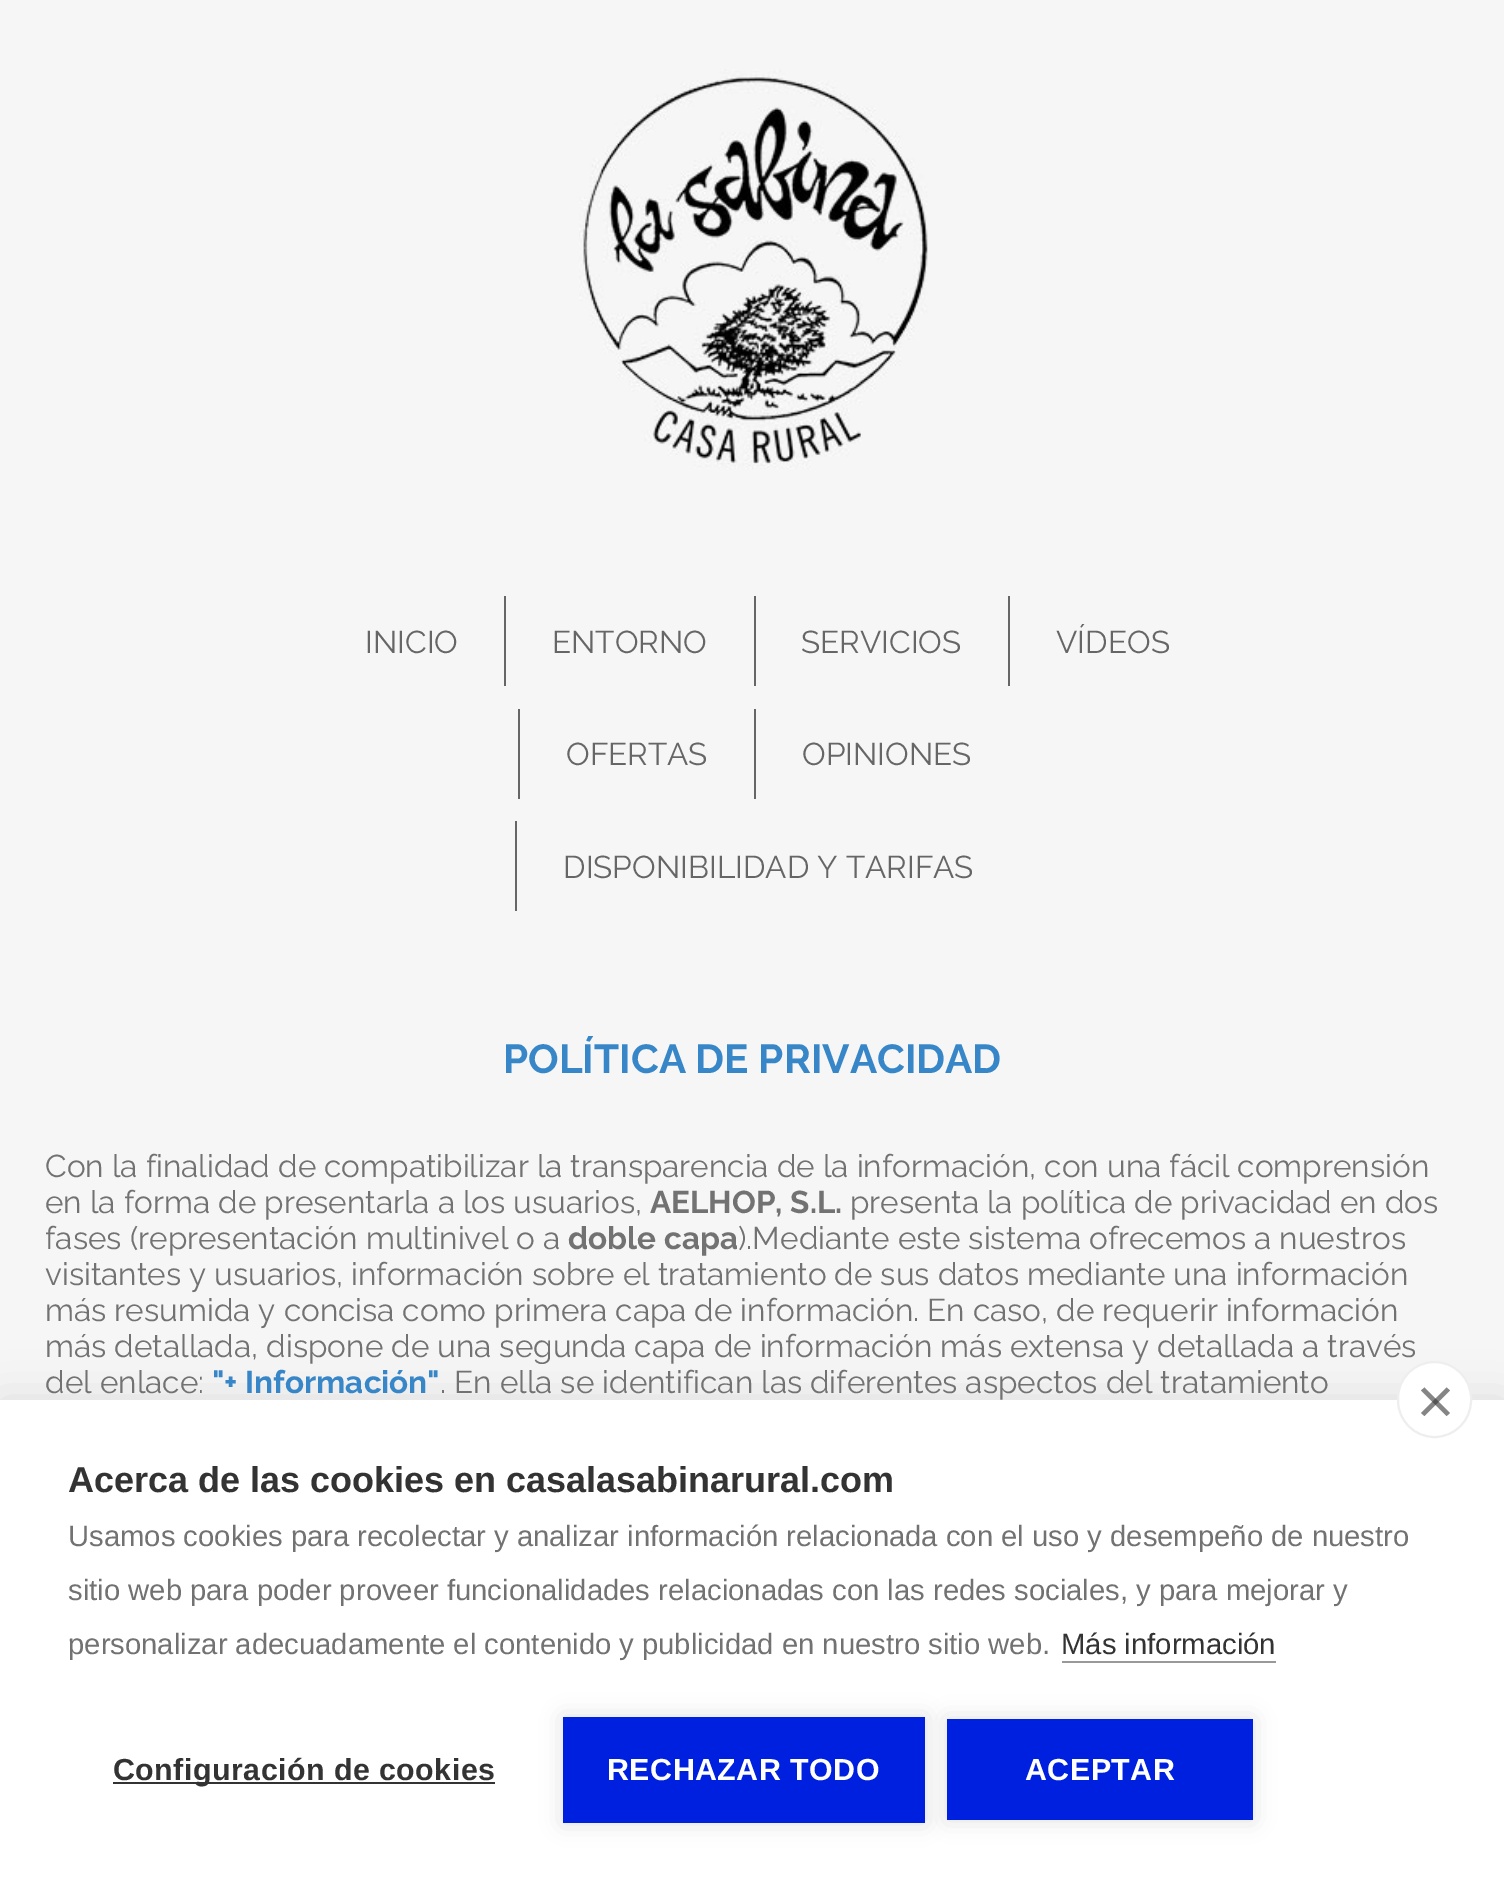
%!PS
<< /PageSize [1504 1878] /PageUsesTransparency true >> setpagedevice
/rgb { 3 { 255 div 3 1 roll } repeat setrgbcolor } def
/font { [ exch dup neg 0 0 3 -1 roll 0 0 ] selectfont } def
/alpha { dup .setfillconstantalpha .setstrokeconstantalpha } def
/roundrect { 5 dict begin { /r /h /w /y /x } { exch def } forall
  x r add y moveto x w add y 2 copy h add r arct x w add y h add x 1 index r arct
  x y h add x y r arct x y 2 copy exch w add exch r arct closepath end } def
/shadow { 12 dict begin { /a /b /q /h /w /y /x } { exch def } forall gsave /was 0 def
  9 -2 -9 { dup b mul 4 div /e exch def 1 sub .425 mul 2.718 exch exp 1 add a .99 .min exch div /now exch def
    1 1 now sub 1 was sub div sub alpha /was now def
    w h .min e 2 mul add 0 gt { x e sub y e sub w e 2 mul add h e 2 mul add
      q e add b .6 mul add w h .min 2 div e add .min 0 .max roundrect fill } if } for grestore end } def
/picture { 5 dict begin { /h /w /y /x /name } { exch def } forall
  gsave x y translate w h scale
  w h 8 [w 0 0 h 0 0] name (r) file false 3 colorimage grestore end } def
0 .pushpdf14devicefilter
0 1878 translate 1 -1 scale
4 setmiterlimit
246 246 246 rgb
0 0 1504 1878 rectfill
(img/1.rgb) 579 69 349 400 picture
[
  [504 596 2 90 102 102 102]
  [754 596 2 90 102 102 102]
  [1008 596 2 90 102 102 102]
  [518 709 2 90 102 102 102]
  [754 709 2 90 102 102 102]
  [515 821 2 90 102 102 102]
] { aload pop rgb rectfill } forall
0 0 0 rgb
0 1400 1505 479 0 22.5 0.1 shadow
[
  [0 1400 1504 478 255 255 255]
  [1062 1661 214 2 153 153 153]
  [113 1782 382 2 51 51 51]
] { aload pop rgb rectfill } forall
0 0 0 rgb
563 1717 362 106 0 11 0.12 shadow
0 32 223 rgb
563 1717 362 106 rectfill
0 0 0 rgb
947 1719 306 101 0 11 0.12 shadow
0 32 223 rgb
947 1719 306 101 rectfill
/Raleway-Regular 31.5 font
102 102 102 rgb
[
  [(INICIO) 365 653]
  [(ENTORNO) 552 653]
  [(SERVICIOS) 801 653]
  [(VÍDEOS) 1056 653]
  [(OFERTAS) 566 765]
  [(OPINIONES) 802 765]
  [(DISPONIBILIDAD Y TARIFAS) 563 878]
] { aload pop moveto show } forall
/Raleway-Bold 40.5 font
55 134 200 rgb
503 1073 moveto (POLÍTICA DE PRIVACIDAD) show
/Raleway-Regular 31.5 font
114 114 114 rgb
45 1177 moveto (Con la finalidad de compatibilizar la transparencia de la información, con una fácil comprensión) show
45 1213 moveto (en la forma de presentarla a los usuarios,) show
/Raleway-Bold 31.5 font
650 1213 moveto (AELHOP, S.L.) show
/Raleway-Regular 31.5 font
850 1213 moveto (presenta la política de privacidad en dos) show
45 1249 moveto (fases \(representación multinivel o a) show
/Raleway-Bold 31.5 font
568 1249 moveto (doble capa) show
/Raleway-Regular 31.5 font
[
  [(\).Mediante este sistema ofrecemos a nuestros) 738 1249]
  [(visitantes y usuarios, información sobre el tratamiento de sus datos mediante una información) 45 1285]
  [(más resumida y concisa como primera capa de información. En caso, de requerir información) 45 1321]
  [(más detallada, dispone de una segunda capa de información más extensa y detallada a través) 45 1357]
  [(del enlace:) 45 1393]
] { aload pop moveto show } forall
/Raleway-Bold 31.5 font
55 134 200 rgb
212 1393 moveto ("+ Información") show
/Raleway-Regular 31.5 font
114 114 114 rgb
440 1393 moveto (. En ella se identifican las diferentes aspectos del tratamiento) show
255 255 255 rgb
1398 1362 73 75 36.5 roundrect gsave fill grestore
238 238 238 rgb
2 setlinewidth
stroke
133 133 133 rgb
1421 1413 moveto 1446.5 1387.5 lineto 1450 1390.5 lineto 1424.5 1416 lineto closepath fill
0.6 alpha
51 51 51 rgb
1424.5 1387.5 moveto 1450 1413 lineto 1446.5 1416 lineto 1421 1390.5 lineto closepath fill
/LiberationSans-Bold 36 font
1 alpha
68 1492 moveto (Acerca de las cookies en casalasabinarural.com) show
/LiberationSans-Regular 29.25 font
114 114 114 rgb
[
  [(Usamos cookies para recolectar y analizar información relacionada con el uso y desempeño de nuestro) 68 1546]
  [(sitio web para poder proveer funcionalidades relacionadas con las redes sociales, y para mejorar y) 68 1600]
  [(personalizar adecuadamente el contenido y publicidad en nuestro sitio web.) 68 1654]
] { aload pop moveto show } forall
51 51 51 rgb
1061 1654 moveto (Más información) show
/LiberationSans-Bold 30.4 font
113 1780 moveto 0.45 0 (Configuración de cookies) ashow
255 255 255 rgb
607 1780 moveto 0.45 0 (RECHAZAR TODO) ashow
1025 1780 moveto 0.45 0 (ACEPTAR) ashow
.poppdf14devicefilter showpage
